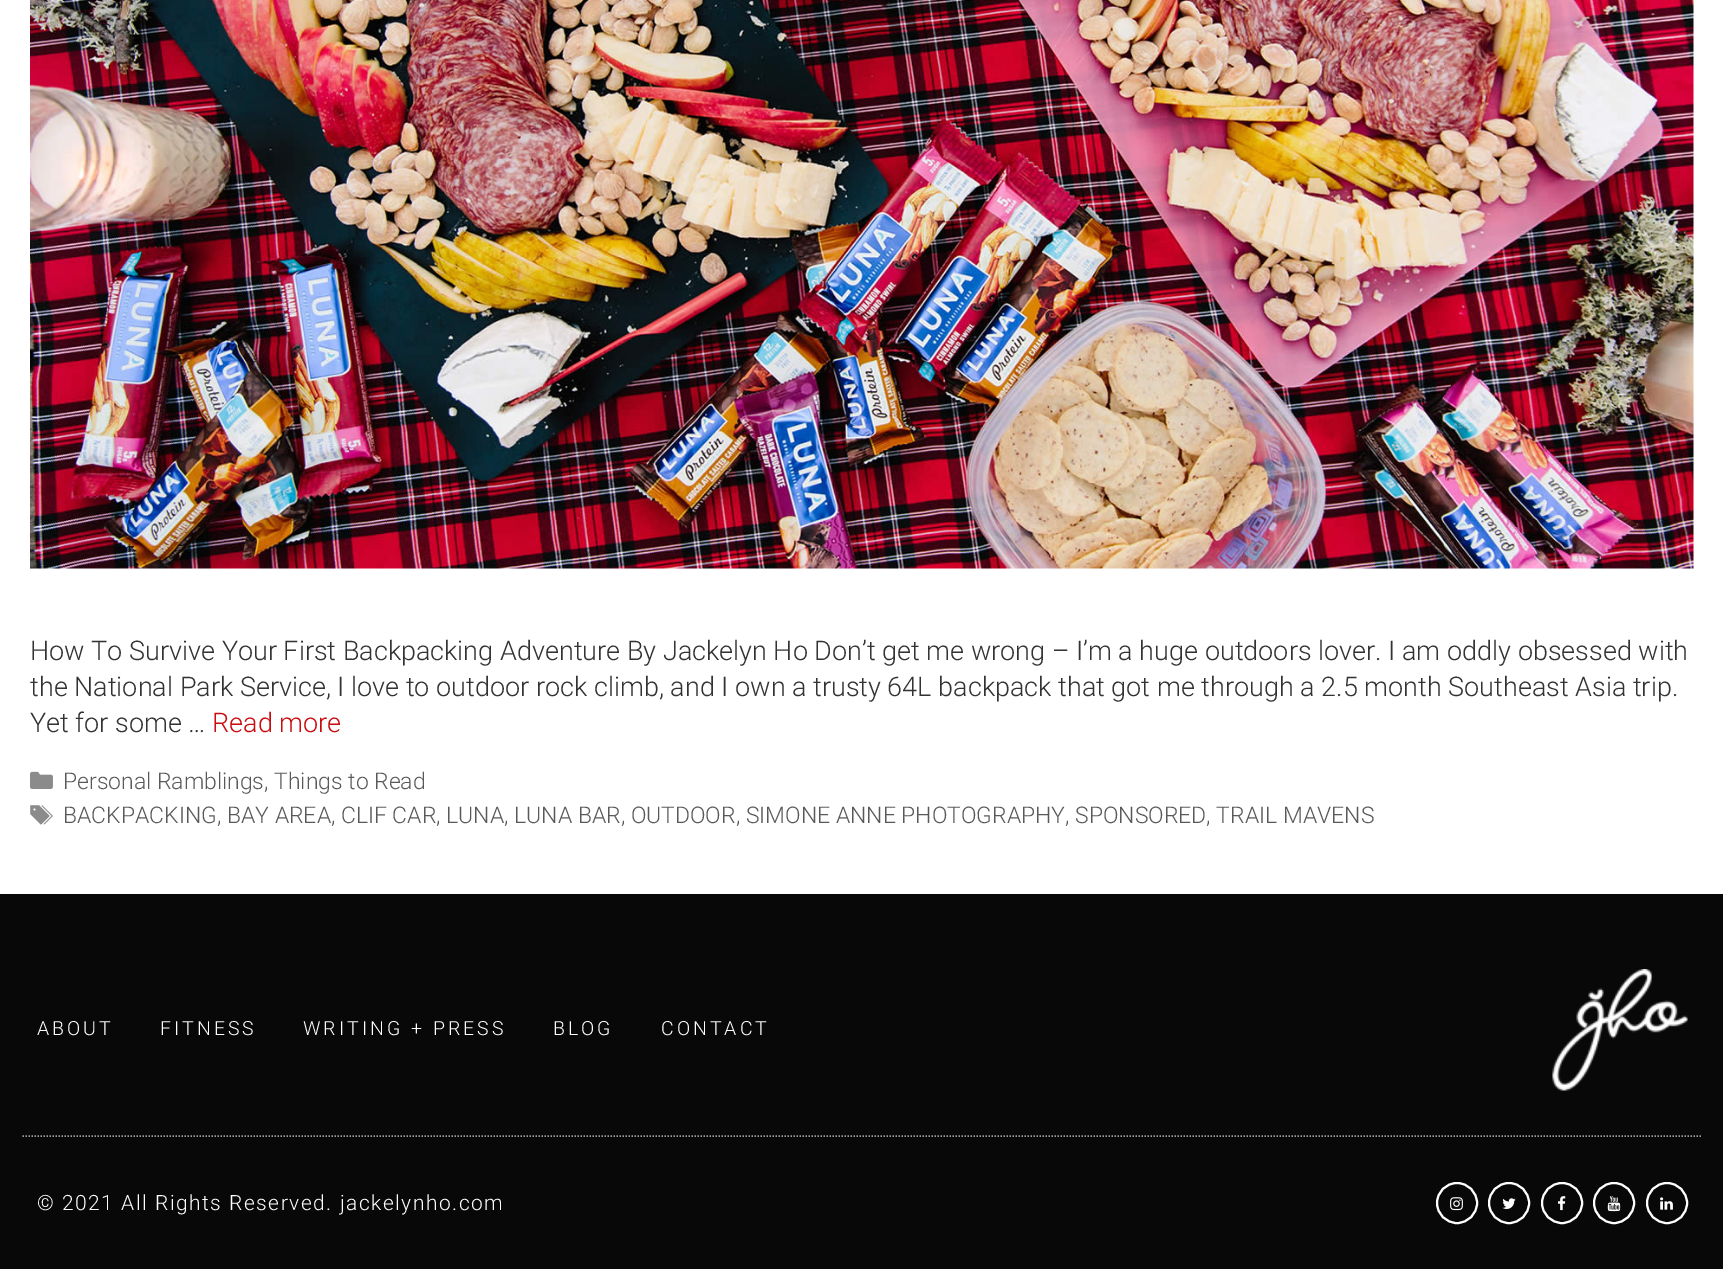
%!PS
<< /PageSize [1723 1269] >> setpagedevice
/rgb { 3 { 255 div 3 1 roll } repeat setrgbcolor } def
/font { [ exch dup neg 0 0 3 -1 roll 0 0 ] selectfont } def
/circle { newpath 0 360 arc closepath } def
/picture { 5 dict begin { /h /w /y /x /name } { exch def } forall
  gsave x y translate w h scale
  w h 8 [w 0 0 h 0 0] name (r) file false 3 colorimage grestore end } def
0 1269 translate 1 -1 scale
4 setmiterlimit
255 255 255 rgb
0 0 1723 1269 rectfill
(img/1.rgb) 30 0 1664 569 picture
(img/2.rgb) 30 771 23 18 picture
(img/3.rgb) 30 805 23 20 picture
8 8 8 rgb
0 894 1723 375 rectfill
155 155 155 rgb
1.5 setlinewidth
[1.5 1.5] 0 setdash
22.5 1136 moveto 1702.5 1136 lineto stroke
(img/4.rgb) 1552 969 136 122 picture
255 255 255 rgb
2 setlinewidth
[] 0 setdash
1457 1203 20 circle stroke
(img/5.rgb) 1450 1197 13 14 picture
1509 1203 20 circle stroke
(img/6.rgb) 1502 1198 14 11 picture
1562 1203 20 circle stroke
(img/7.rgb) 1558 1196 8 15 picture
1614 1203 20 circle stroke
(img/8.rgb) 1607 1196 14 16 picture
1667 1203 20 circle stroke
(img/9.rgb) 1660 1197 13 13 picture
/Roboto-Light 27 font
51 51 51 rgb
[
  [(How To Survive Your First Backpacking Adventure By Jackelyn Ho Don’t get me wrong – I’m a huge outdoors lover. I am oddly obsessed with) 30 660]
  [(the National Park Service, I love to outdoor rock climb, and I own a trusty 64L backpack that got me through a 2.5 month Southeast Asia trip.) 30 696]
  [(Yet for some …) 30 732]
] { aload pop moveto show } forall
201 12 15 rgb
212 732 moveto (Read more) show
/Roboto-Light 22.95 font
89 89 89 rgb
63 789 moveto (Personal Ramblings, Things to Read) show
63 823 moveto (BACKPACKING, BAY AREA, CLIF CAR, LUNA, LUNA BAR, OUTDOOR, SIMONE ANNE PHOTOGRAPHY, SPONSORED, TRAIL MAVENS) show
/Roboto-Light 19.5 font
255 255 255 rgb
37 1035 moveto 3 0 (ABOUT) ashow
160 1035 moveto 3 0 (FITNESS) ashow
303 1035 moveto 3 0 (WRITING + PRESS) ashow
553 1035 moveto 3 0 (BLOG) ashow
661 1035 moveto 3 0 (CONTACT) ashow
/Roboto-Light 21 font
37 1210 moveto 1.5 0 (© 2021 All Rights Reserved. jackelynho.com) ashow
showpage
